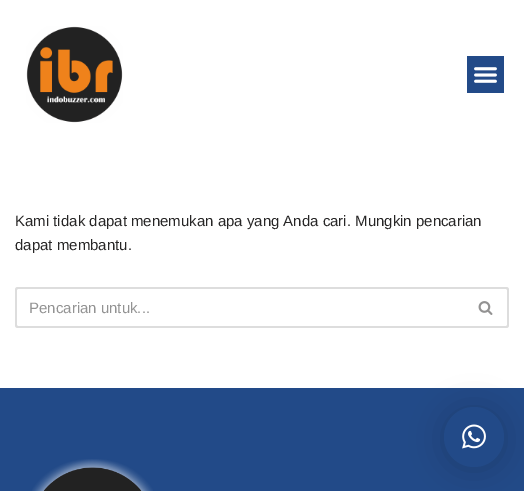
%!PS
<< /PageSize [524 491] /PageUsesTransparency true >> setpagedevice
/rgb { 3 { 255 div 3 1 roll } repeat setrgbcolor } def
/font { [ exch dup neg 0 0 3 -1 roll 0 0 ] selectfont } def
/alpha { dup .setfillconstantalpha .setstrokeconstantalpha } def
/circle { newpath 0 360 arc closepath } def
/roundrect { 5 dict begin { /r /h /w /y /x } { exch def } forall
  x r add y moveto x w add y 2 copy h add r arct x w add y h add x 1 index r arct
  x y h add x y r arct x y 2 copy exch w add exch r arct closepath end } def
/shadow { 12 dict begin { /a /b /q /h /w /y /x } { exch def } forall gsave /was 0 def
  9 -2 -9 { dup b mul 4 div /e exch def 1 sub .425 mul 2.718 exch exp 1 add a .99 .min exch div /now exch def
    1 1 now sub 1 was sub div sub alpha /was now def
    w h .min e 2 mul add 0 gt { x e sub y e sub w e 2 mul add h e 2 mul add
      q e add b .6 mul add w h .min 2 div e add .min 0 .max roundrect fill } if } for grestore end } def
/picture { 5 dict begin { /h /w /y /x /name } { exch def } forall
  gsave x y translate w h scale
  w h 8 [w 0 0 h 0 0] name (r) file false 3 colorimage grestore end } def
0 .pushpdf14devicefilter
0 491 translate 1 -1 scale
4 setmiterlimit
255 255 255 rgb
0 0 524 491 rectfill
(img/1.rgb) 26 26 97 97 picture
34 74 136 rgb
467 56 37 37 rectfill
(img/2.rgb) 474 67 23 16 picture
221 221 221 rgb
18 287 moveto 464 287 lineto 464 328 lineto 18 328 lineto 16 328 15 327 15 325 curveto 15 290 lineto 15 288 16 287 18 287 curveto closepath 18 289 moveto 464 289 lineto 464 326 lineto 18 326 lineto 17 326 17 326 17 325 curveto 17 290 lineto 17 289 17 289 18 289 curveto closepath eofill
464 287 moveto 506 287 lineto 508 287 509 288 509 290 curveto 509 325 lineto 509 327 508 328 506 328 curveto 464 328 lineto closepath 464 289 moveto 506 289 lineto 507 289 507 289 507 290 curveto 507 325 lineto 507 326 507 326 506 326 curveto 464 326 lineto closepath eofill
(img/3.rgb) 478 301 15 14 picture
34 74 136 rgb
0 388 524 103 rectfill
(img/4.rgb) 32 459 121 32 picture
0 0 0 rgb
444 409 60 60 30 16 0.16 shadow
34 74 136 rgb
474 437 30 circle fill
(img/5.rgb) 462 424 24 25 picture
/LiberationSans-Regular 15 font
39 38 38 rgb
15 226 moveto (Kami tidak dapat menemukan apa yang Anda cari. Mungkin pencarian) show
15 250 moveto (dapat membantu.) show
147 147 147 rgb
29 313 moveto (Pencarian untuk...) show
.poppdf14devicefilter showpage
